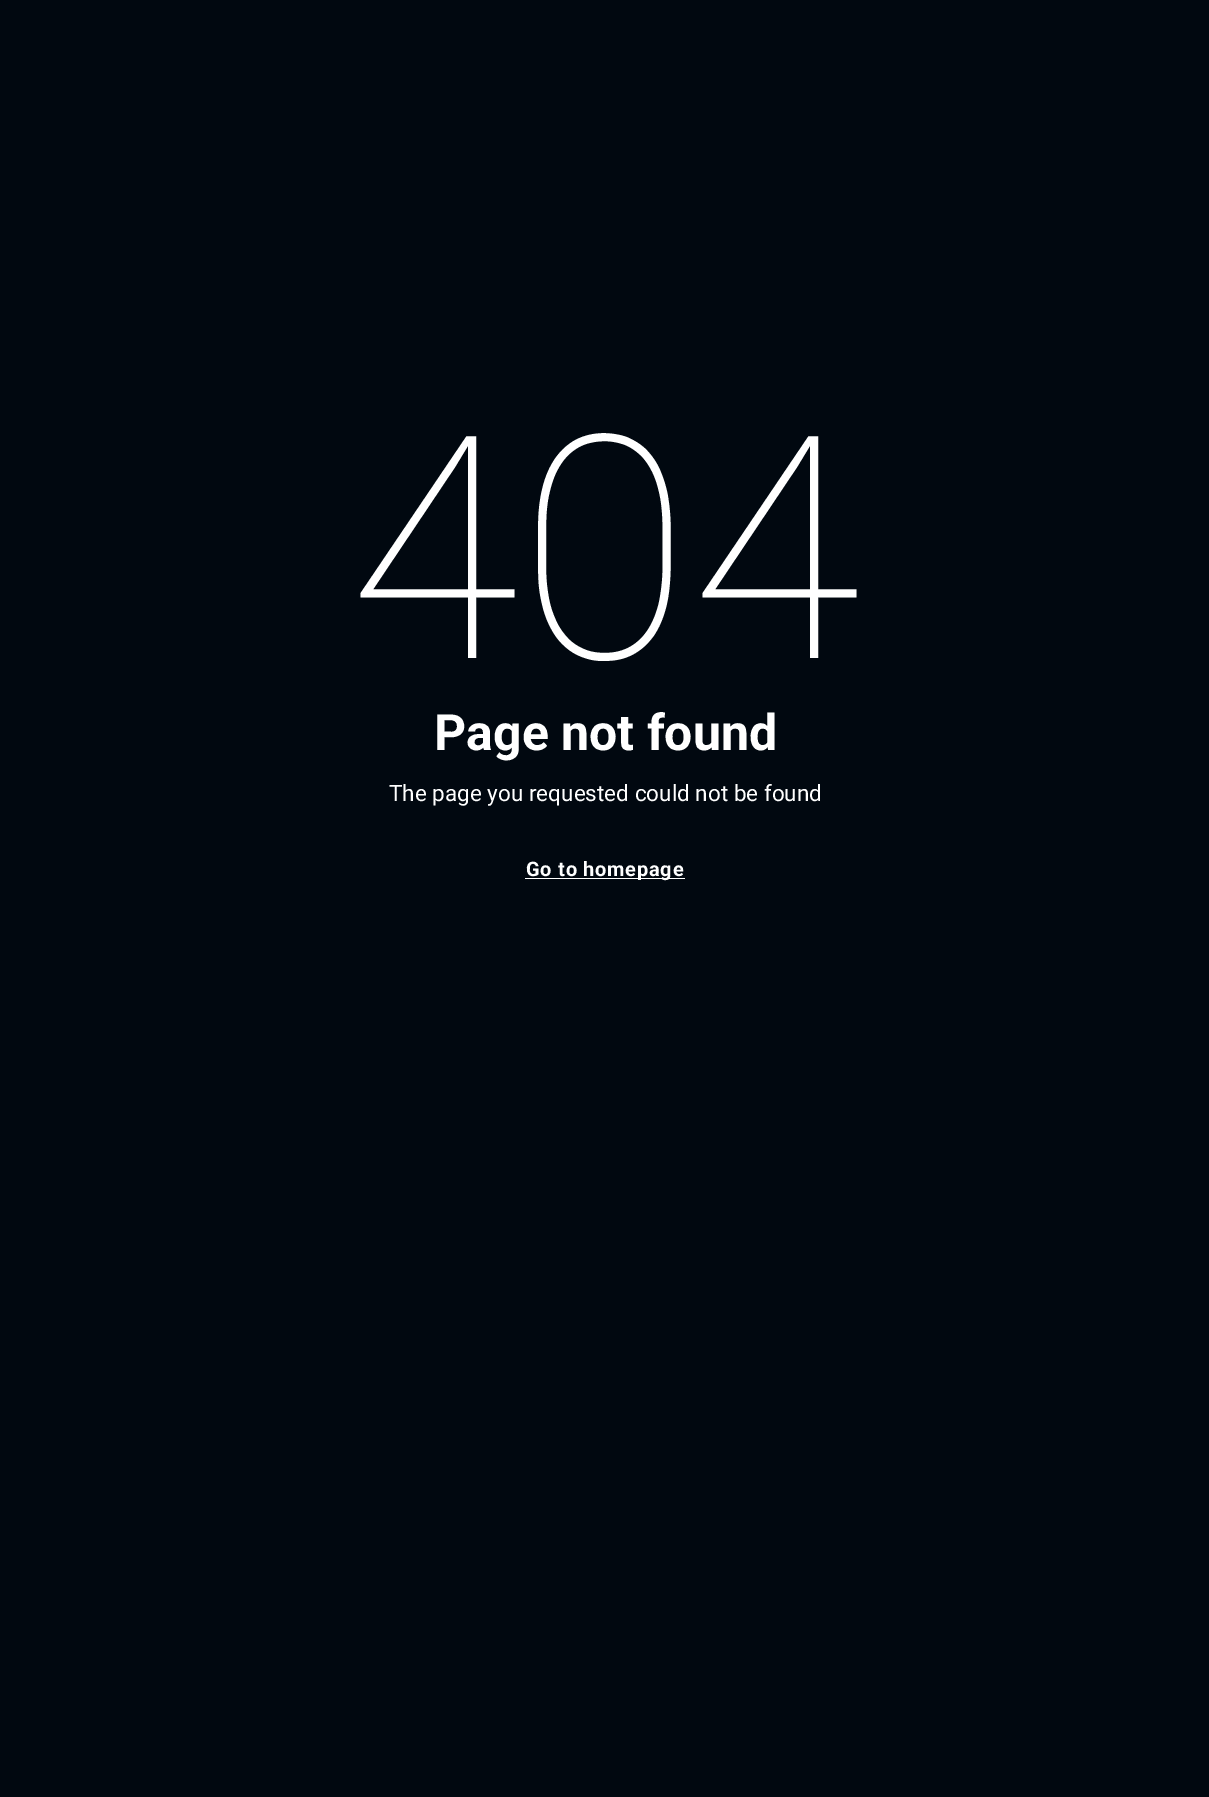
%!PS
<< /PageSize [1209 1797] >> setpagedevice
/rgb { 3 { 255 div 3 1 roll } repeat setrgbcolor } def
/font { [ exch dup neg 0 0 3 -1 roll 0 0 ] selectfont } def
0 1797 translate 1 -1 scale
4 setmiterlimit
1 8 16 rgb
0 0 1209 1797 rectfill
255 255 255 rgb
525 878 160 1 rectfill
/Roboto-Thin 312 font
348 658 moveto (404) show
/Roboto-Bold 50 font
434 750 moveto (Page not found) show
/Roboto-Regular 22.5 font
389 801 moveto (The page you requested could not be found) show
/Roboto-Bold 20 font
526 876 moveto 0.75 0 (Go to homepage) ashow
showpage
